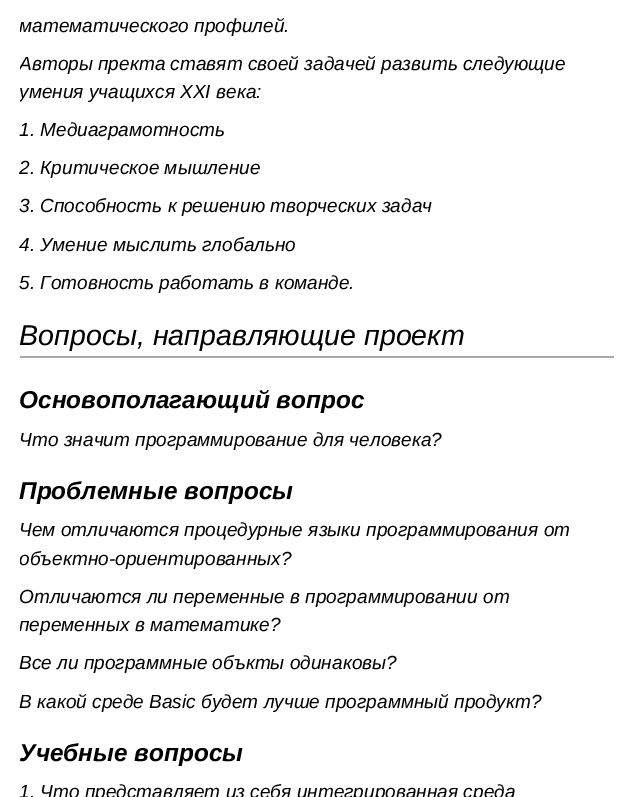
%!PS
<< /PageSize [632 797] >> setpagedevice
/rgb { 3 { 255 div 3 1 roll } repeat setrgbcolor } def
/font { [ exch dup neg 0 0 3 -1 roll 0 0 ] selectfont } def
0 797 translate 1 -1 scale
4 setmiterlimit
255 255 255 rgb
0 0 632 797 rectfill
162 169 177 rgb
20 356 594 2 rectfill
gsave
20 0 594 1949 rectclip
/LiberationSans-Italic 19.05 font
0 0 0 rgb
[
  [(математического профилей.) 19 32]
  [(Авторы пректа ставят своей задачей развить следующие) 19 70]
  [(умения учащихся XXI века:) 19 98]
] { aload pop moveto show } forall
grestore
/LiberationSans-Italic 19.05 font
0 0 0 rgb
[
  [(1. Медиаграмотность) 19 136]
  [(2. Критическое мышление) 19 174]
  [(3. Способность к решению творческих задач) 19 212]
  [(4. Умение мыслить глобально) 19 251]
  [(5. Готовность работать в команде.) 19 289]
] { aload pop moveto show } forall
/LiberationSans-Italic 28.6 font
19 345 moveto (Вопросы, направляющие проект) show
/LiberationSans-BoldItalic 24.4 font
19 408 moveto (Основополагающий вопрос) show
/LiberationSans-Italic 19.05 font
19 446 moveto (Что значит программирование для человека?) show
/LiberationSans-BoldItalic 24.4 font
19 499 moveto (Проблемные вопросы) show
/LiberationSans-Italic 19.05 font
19 536 moveto (Чем отличаются процедурные языки программирования от) show
gsave
20 0 594 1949 rectclip
19 565 moveto (объектно-ориентированных?) show
grestore
19 603 moveto (Отличаются ли переменные в программировании от) show
gsave
20 0 594 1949 rectclip
19 631 moveto (переменных в математике?) show
grestore
19 669 moveto (Все ли программные объкты одинаковы?) show
19 708 moveto (В какой среде Basic будет лучше программный продукт?) show
/LiberationSans-BoldItalic 24.4 font
19 761 moveto (Учебные вопросы) show
/LiberationSans-Italic 19.05 font
19 798 moveto (1. Что представляет из себя интегрированная среда) show
showpage
